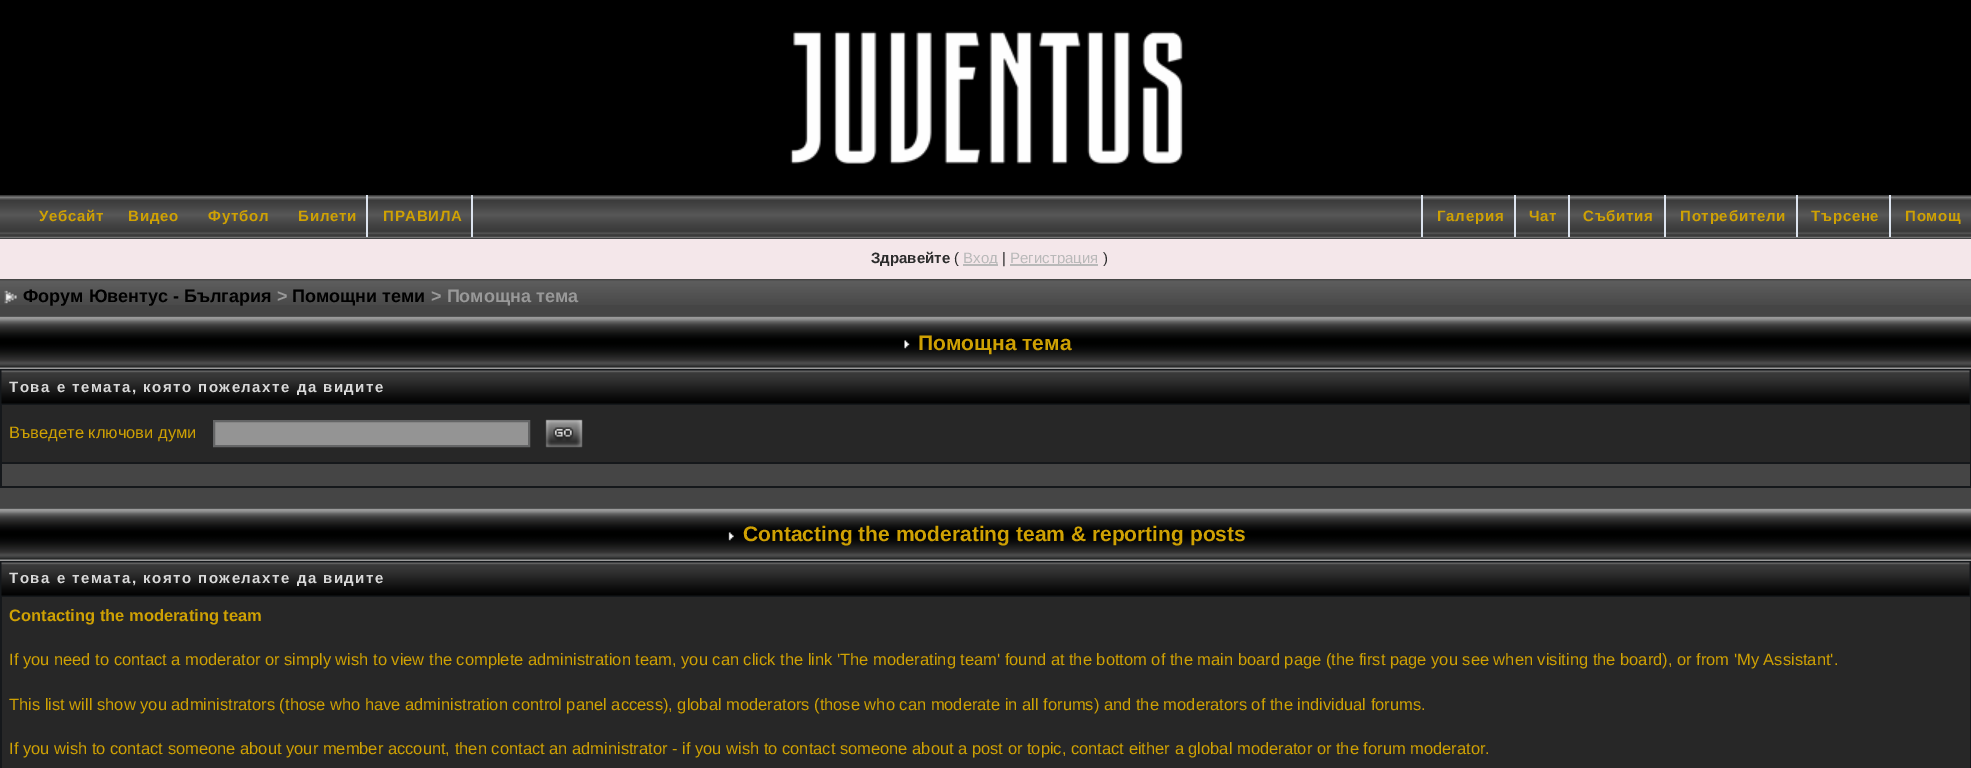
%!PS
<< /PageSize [1971 768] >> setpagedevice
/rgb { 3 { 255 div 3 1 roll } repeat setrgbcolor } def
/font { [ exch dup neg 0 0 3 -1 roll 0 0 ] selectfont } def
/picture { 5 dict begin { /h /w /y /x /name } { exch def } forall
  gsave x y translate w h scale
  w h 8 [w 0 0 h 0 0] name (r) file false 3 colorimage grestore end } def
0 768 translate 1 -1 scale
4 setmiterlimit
69 69 69 rgb
0 0 1971 768 rectfill
21 24 27 rgb
0 238 1971 1 rectfill
0 0 0 rgb
0 0 1971 195 rectfill
(img/1.rgb) 790 31 393 133 picture
(img/2.rgb) 0 195 1971 44 picture
[
  [366 195 2 42 220 227 238]
  [471 195 2 42 220 227 238]
  [1421 195 2 42 220 227 238]
  [1514 195 2 42 220 227 238]
  [1568 195 2 42 220 227 238]
  [1664 195 2 42 220 227 238]
  [1796 195 2 42 220 227 238]
  [1889 195 2 42 220 227 238]
  [0 239 1971 40 244 231 234]
  [963 264 35 2 185 185 185]
  [1010 264 88 2 185 185 185]
] { aload pop rgb rectfill } forall
(img/3.rgb) 0 280 1971 25 picture
(img/4.rgb) 4 290 13 14 picture
21 24 27 rgb
0 369 1971 119 rectfill
(img/5.rgb) 0 316 1971 53 picture
(img/6.rgb) 904 340 6 9 picture
(img/7.rgb) 1 370 1969 34 picture
39 39 39 rgb
2 405 1968 57 rectfill
148 148 148 rgb
214 421 moveto 529 421 lineto 529 446 lineto 214 446 lineto closepath gsave fill grestore
100 101 102 rgb
2 setlinewidth
stroke
(img/8.rgb) 545 419 38 29 picture
69 69 69 rgb
2 464 1968 22 rectfill
21 24 27 rgb
0 561 1971 207 rectfill
(img/5.rgb) 0 508 1971 53 picture
(img/9.rgb) 728 532 6 9 picture
(img/7.rgb) 1 562 1969 34 picture
39 39 39 rgb
2 597 1968 171 rectfill
/LiberationSans-Bold 15 font
207 161 3 rgb
39 221 moveto 0.75 0 (Уебсайт) ashow
128 221 moveto 0.75 0 (Видео) ashow
208 221 moveto 0.75 0 (Футбол) ashow
298 221 moveto 0.75 0 (Билети) ashow
383 221 moveto 0.75 0 (ПРАВИЛА) ashow
1437 221 moveto 0.75 0 (Галерия) ashow
1529 221 moveto 0.75 0 (Чат) ashow
1583 221 moveto 0.75 0 (Събития) ashow
1680 221 moveto 0.75 0 (Потребители) ashow
1811 221 moveto 0.75 0 (Търсене) ashow
1905 221 moveto 0.75 0 (Помощ) ashow
44 44 44 rgb
871 263 moveto (Здравейте) show
/LiberationSans-Regular 15 font
954 263 moveto (\() show
185 185 185 rgb
963 263 moveto (Вход) show
44 44 44 rgb
1002 263 moveto (|) show
185 185 185 rgb
1010 263 moveto (Регистрация) show
44 44 44 rgb
1103 263 moveto (\)) show
/LiberationSans-Bold 18 font
0 0 0 rgb
23 302 moveto (Форум Ювентус - България) show
153 153 153 rgb
277 302 moveto (>) show
0 0 0 rgb
292 302 moveto (Помощни теми) show
153 153 153 rgb
431 302 moveto (> Помощна тема) show
/LiberationSans-Bold 21 font
207 161 3 rgb
918 350 moveto (Помощна тема) show
/LiberationSans-Bold 15 font
217 217 217 rgb
9 392 moveto 1.5 0 (Това е темата, която пожелахте да видите) ashow
/LiberationSans-Regular 16.5 font
207 161 3 rgb
9 438 moveto (Въведете ключови думи) show
/LiberationSans-Bold 21 font
743 541 moveto (Contacting the moderating team & reporting posts) show
/LiberationSans-Bold 15 font
217 217 217 rgb
9 583 moveto 1.5 0 (Това е темата, която пожелахте да видите) ashow
/LiberationSans-Bold 16.5 font
207 161 3 rgb
9 621 moveto (Contacting the moderating team) show
/LiberationSans-Regular 16.5 font
[
  [(If you need to contact a moderator or simply wish to view the complete administration team, you can click the link 'The moderating team' found at the bottom of the main board page \(the first page you see when visiting the board\), or from 'My Assistant'.) 9 665]
  [(This list will show you administrators \(those who have administration control panel access\), global moderators \(those who can moderate in all forums\) and the moderators of the individual forums.) 9 710]
  [(If you wish to contact someone about your member account, then contact an administrator - if you wish to contact someone about a post or topic, contact either a global moderator or the forum moderator.) 9 754]
] { aload pop moveto show } forall
showpage
